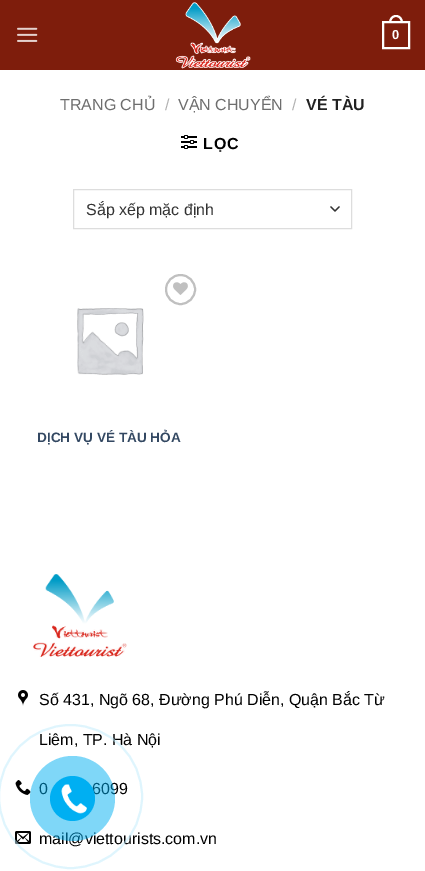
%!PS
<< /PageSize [425 871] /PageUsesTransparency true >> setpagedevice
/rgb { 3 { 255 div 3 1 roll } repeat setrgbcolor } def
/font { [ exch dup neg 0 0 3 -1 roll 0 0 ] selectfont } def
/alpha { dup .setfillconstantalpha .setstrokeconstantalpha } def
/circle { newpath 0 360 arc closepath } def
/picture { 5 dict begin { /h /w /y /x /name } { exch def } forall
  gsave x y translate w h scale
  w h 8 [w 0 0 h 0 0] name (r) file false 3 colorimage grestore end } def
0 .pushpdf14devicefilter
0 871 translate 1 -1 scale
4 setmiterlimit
255 255 255 rgb
0 0 425 871 rectfill
126 29 12 rgb
0 0 425 70 rectfill
(img/1.rgb) 17 27 21 15 picture
(img/2.rgb) 175 2 76 67 picture
255 255 255 rgb
2 setlinewidth
383 22 26 26 rectstroke
396 15 moveto 400.5 15 403 19 403 23 curveto 389 23 lineto 389 19 391.5 15 396 15 curveto closepath 396 17 moveto 399.5 17 401 20 401 23 curveto 391 23 lineto 391 20 392.5 17 396 17 curveto closepath eofill
(img/3.rgb) 181 135 16 14 picture
51 51 51 rgb
1.3 setlinewidth
1 setlinecap
1 setlinejoin
331 207 moveto 335 211 lineto 339 207 lineto stroke
221 221 221 rgb
1 setlinewidth
0 setlinecap
0 setlinejoin
73.5 189.5 278 39 rectstroke
192 192 192 rgb
2 setlinewidth
180.5 289.5 14.5 circle stroke
(img/4.rgb) 173 282 15 13 picture
(img/5.rgb) 77 308 67 67 picture
(img/6.rgb) 33 574 94 83 picture
(img/7.rgb) 18 690 10 16 picture
(img/8.rgb) 15 780 16 15 picture
(img/9.rgb) 15 831 16 13 picture
/LiberationSans-Bold 13 font
255 255 255 rgb
392 39 moveto (0) show
/LiberationSans-Regular 16 font
110 110 110 rgb
60 110 moveto (TRANG CHỦ) show
178 178 178 rgb
165 110 moveto (/) show
110 110 110 rgb
178 110 moveto (VẬN CHUYỂN) show
178 178 178 rgb
292 110 moveto (/) show
/LiberationSans-Bold 16 font
34 34 34 rgb
306 110 moveto (VÉ TÀU) show
0 0 0 rgb
203 149 moveto 1 0 (LỌC) ashow
/LiberationSans-Regular 16 font
51 51 51 rgb
86 215 moveto (Sắp xếp mặc định) show
/LiberationSans-Bold 13.6 font
51 72 98 rgb
37 442 moveto (DỊCH VỤ VÉ TÀU HỎA) show
/LiberationSans-Regular 16 font
0 0 0 rgb
[
  [(Số 431, Ngõ 68, Đường Phú Diễn, Quận Bắc Từ) 39 705]
  [(Liêm, TP. Hà Nội) 39 745]
  [(0) 39 794]
  [(6099) 92 794]
  [(mail@viettourists.com.vn) 39 844]
] { aload pop moveto show } forall
0.5 alpha
191 235 252 rgb
70.5 796.5 71.5 circle stroke
0 175 242 rgb
72.5 798.5 42.5 circle fill
1 alpha
72.5 798.5 22.5 circle fill
(img/10.rgb) 61 784 26 30 picture
.poppdf14devicefilter showpage
